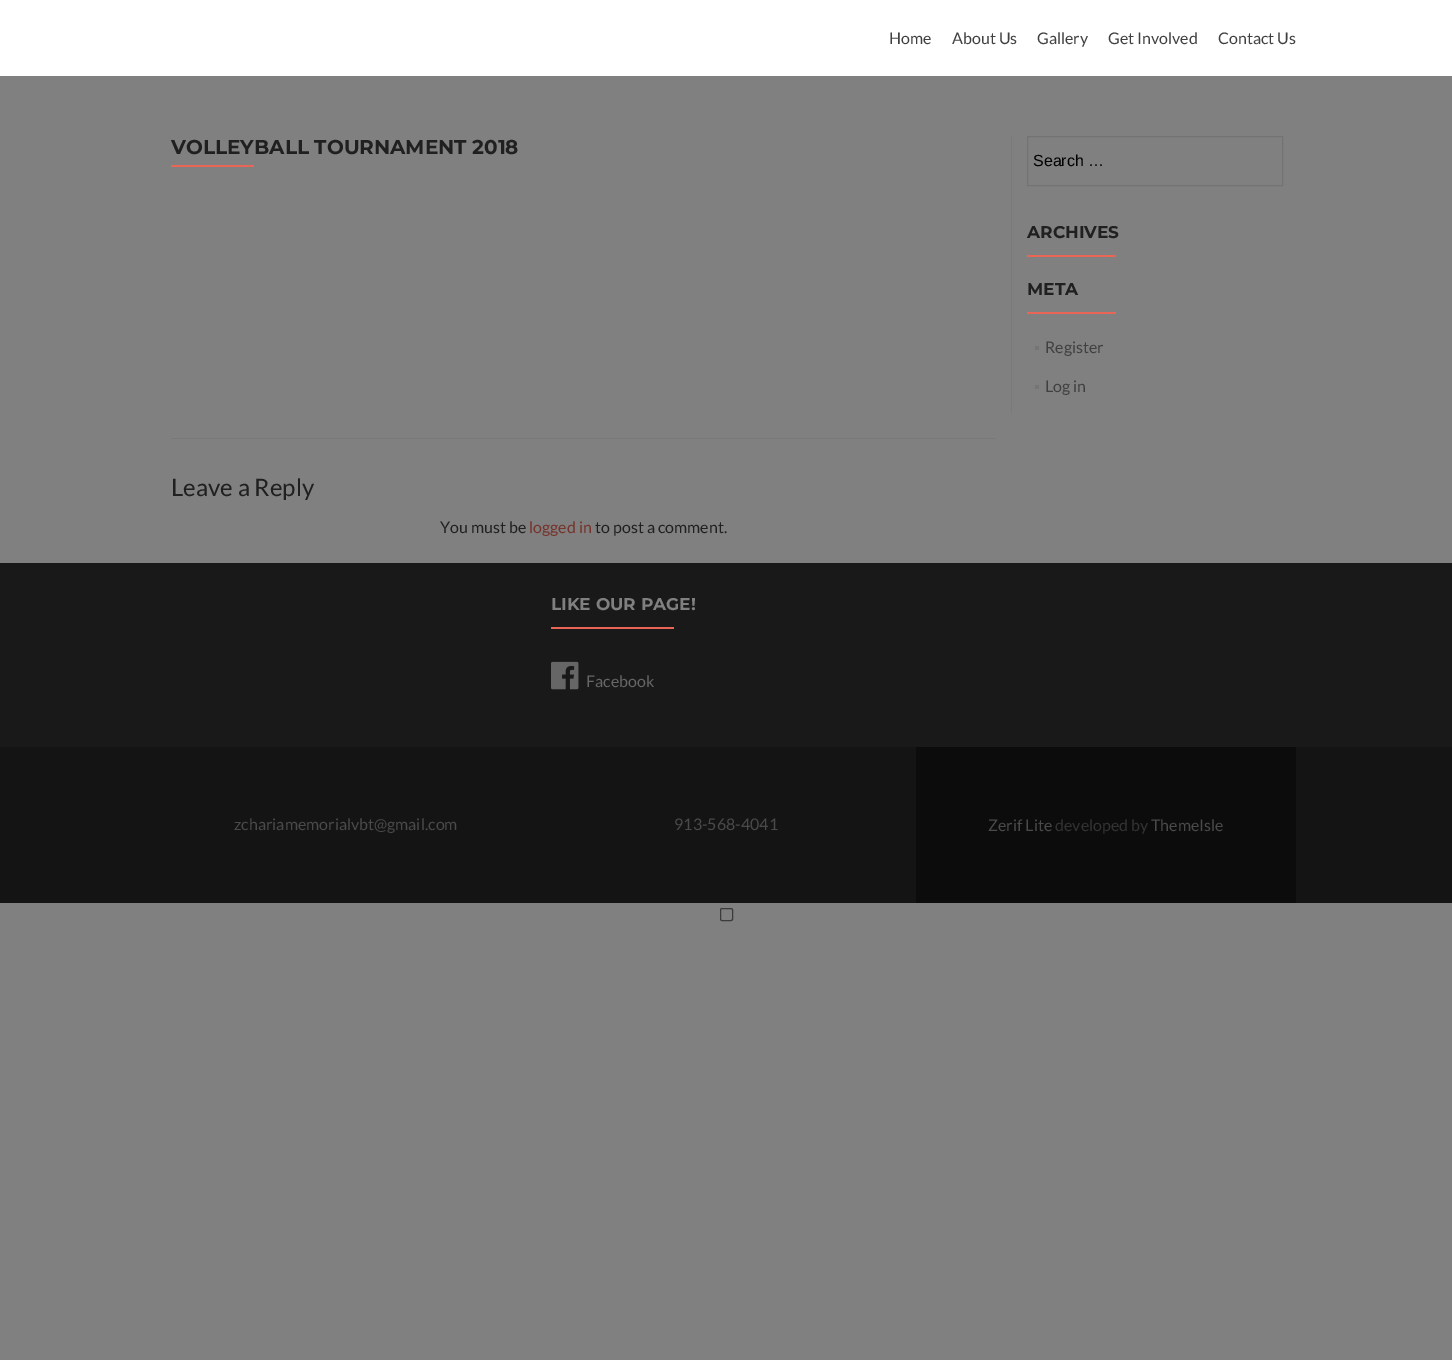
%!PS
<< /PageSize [1452 1360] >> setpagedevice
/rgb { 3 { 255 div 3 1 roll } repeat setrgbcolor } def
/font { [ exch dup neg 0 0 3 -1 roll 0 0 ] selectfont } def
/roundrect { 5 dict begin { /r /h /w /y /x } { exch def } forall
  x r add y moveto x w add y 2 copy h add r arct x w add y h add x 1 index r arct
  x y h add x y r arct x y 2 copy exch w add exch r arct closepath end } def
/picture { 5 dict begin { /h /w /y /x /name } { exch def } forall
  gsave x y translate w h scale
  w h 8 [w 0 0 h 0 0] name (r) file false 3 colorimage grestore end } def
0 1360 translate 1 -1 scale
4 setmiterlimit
128 128 128 rgb
0 0 1452 1360 rectfill
[
  [0 0 1452 76 255 255 255]
  [171 438 825 1 121 121 121]
  [171 165 83 2 233 102 86]
  [1011 136 1 277 121 121 121]
] { aload pop rgb rectfill } forall
115 115 115 rgb
1027.5 136.5 255 49 rectstroke
[
  [1027 255 89 2 233 102 86]
  [1027 312 89 2 233 102 86]
  [1035 346 4 4 117 117 117]
  [1035 385 4 4 117 117 117]
  [0 747 1452 156 20 20 20]
  [0 563 1452 184 25 25 25]
  [551 627 123 2 233 102 86]
] { aload pop rgb rectfill } forall
(img/1.rgb) 551 661 28 29 picture
12 12 12 rgb
916 747 380 156 rectfill
59 59 59 rgb
720.5 908.5 12 12 1.5 roundrect stroke
/Lato-Regular 16 font
64 64 64 rgb
[
  [(Home) 889 44]
  [(About Us) 952 44]
  [(Gallery) 1037 44]
  [(Get Involved) 1108 44]
  [(Contact Us) 1218 44]
] { aload pop moveto show } forall
/Montserrat-Bold 20 font
32 32 32 rgb
171 154 moveto (VOLLEYBALL TOURNAMENT 2018) show
/Lato-Regular 24 font
171 496 moveto (Leave a Reply) show
/Lato-Regular 16 font
440 533 moveto (You must be) show
117 51 43 rgb
529 533 moveto (logged in) show
32 32 32 rgb
595 533 moveto (to post a comment.) show
/LiberationSans-Regular 16 font
0 0 0 rgb
1033 166 moveto (Search …) show
/Montserrat-Bold 17 font
32 32 32 rgb
1027 238 moveto (ARCHIVES) show
1027 295 moveto (META) show
/Lato-Regular 16 font
64 64 64 rgb
1045 353 moveto (Register) show
1045 392 moveto (Log in) show
/Montserrat-Bold 17 font
128 128 128 rgb
551 610 moveto (LIKE OUR PAGE!) show
/Lato-Regular 16 font
102 102 102 rgb
586 687 moveto (Facebook) show
74 74 74 rgb
[
  [(zchariamemorialvbt@gmail.com) 234 830]
  [(913-568-4041) 674 830]
  [(Zerif Lite) 988 831]
] { aload pop moveto show } forall
51 51 51 rgb
1055 831 moveto (developed by) show
74 74 74 rgb
1151 831 moveto (ThemeIsle) show
showpage
